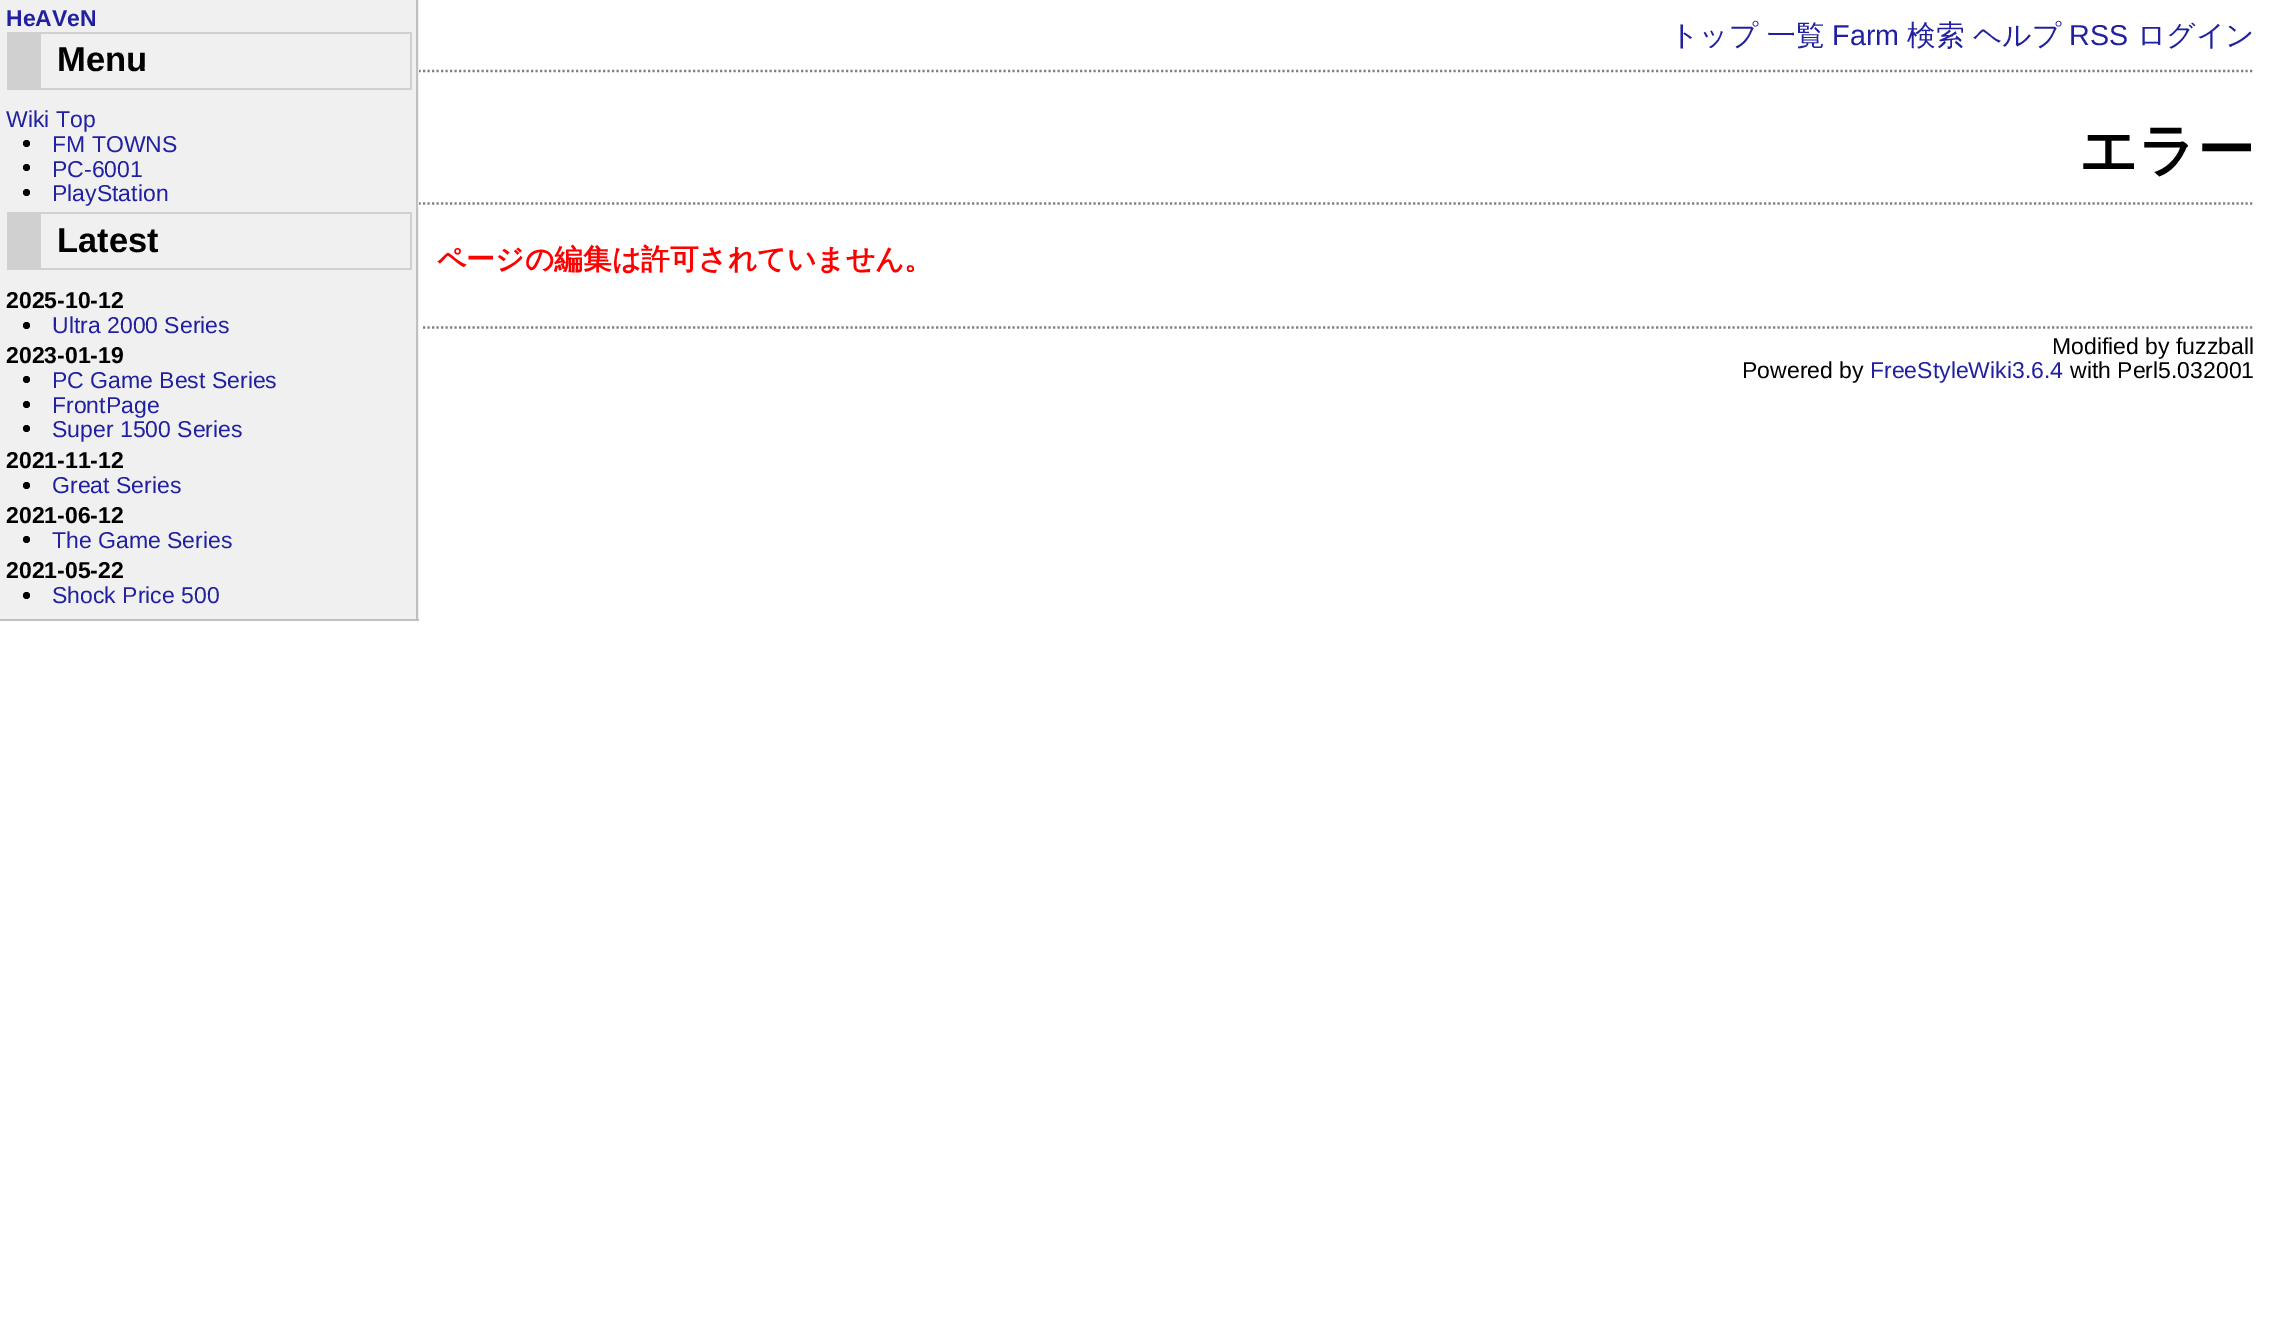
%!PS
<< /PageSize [2271 1326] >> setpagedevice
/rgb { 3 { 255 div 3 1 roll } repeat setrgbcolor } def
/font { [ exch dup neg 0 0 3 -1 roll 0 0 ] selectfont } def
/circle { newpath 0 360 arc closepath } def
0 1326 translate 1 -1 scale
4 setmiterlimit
255 255 255 rgb
0 0 2271 1326 rectfill
128 128 128 rgb
2.2 setlinewidth
[2.25 2.25] 0 setdash
18 71 moveto 2254.5 71 lineto stroke
18 203.5 moveto 2254.5 203.5 lineto stroke
[
  [0 0 419 619 240 240 240]
  [416 0 2 621 192 192 192]
  [0 619 419 2 192 192 192]
  [41 32 371 2 208 208 208]
  [410 32 2 58 208 208 208]
  [41 88 371 2 208 208 208]
  [7 32 34 58 208 208 208]
] { aload pop rgb rectfill } forall
0 0 0 rgb
26.5 143.5 3.5 circle fill
26.5 167.5 3.5 circle fill
26.5 192.5 3.5 circle fill
[
  [41 212 371 2 208 208 208]
  [410 212 2 58 208 208 208]
  [41 268 371 2 208 208 208]
  [7 212 34 58 208 208 208]
] { aload pop rgb rectfill } forall
0 0 0 rgb
26.5 325.5 3.5 circle fill
26.5 379.5 3.5 circle fill
26.5 404.5 3.5 circle fill
26.5 428.5 3.5 circle fill
26.5 485.5 3.5 circle fill
26.5 539.5 3.5 circle fill
26.5 595.5 3.5 circle fill
128 128 128 rgb
423 327.5 moveto 2254.5 327.5 lineto stroke
/LiberationSans-Bold 23 font
32 32 160 rgb
6 26 moveto (HeAVeN) show
/LiberationSans-Bold 34.5 font
0 0 0 rgb
57 71 moveto (Menu) show
/LiberationSans-Regular 23 font
32 32 160 rgb
[
  [(Wiki Top) 6 127]
  [(FM TOWNS) 52 152]
  [(PC-6001) 52 177]
  [(PlayStation) 52 201]
] { aload pop moveto show } forall
/LiberationSans-Bold 34.5 font
0 0 0 rgb
57 252 moveto (Latest) show
/LiberationSans-Bold 23 font
6 308 moveto (2025-10-12) show
/LiberationSans-Regular 23 font
32 32 160 rgb
52 333 moveto (Ultra 2000 Series) show
/LiberationSans-Bold 23 font
0 0 0 rgb
6 363 moveto (2023-01-19) show
/LiberationSans-Regular 23 font
32 32 160 rgb
[
  [(PC Game Best Series) 52 388]
  [(FrontPage) 52 413]
  [(Super 1500 Series) 52 437]
] { aload pop moveto show } forall
/LiberationSans-Bold 23 font
0 0 0 rgb
6 468 moveto (2021-11-12) show
/LiberationSans-Regular 23 font
32 32 160 rgb
52 493 moveto (Great Series) show
/LiberationSans-Bold 23 font
0 0 0 rgb
6 523 moveto (2021-06-12) show
/LiberationSans-Regular 23 font
32 32 160 rgb
52 548 moveto (The Game Series) show
/LiberationSans-Bold 23 font
0 0 0 rgb
6 578 moveto (2021-05-22) show
/LiberationSans-Regular 23 font
32 32 160 rgb
52 603 moveto (Shock Price 500) show
/WenQuanYiZenHei-Medium 28.75 font
1670 45 moveto (トップ) show
1767 45 moveto (一覧) show
/LiberationSans-Regular 28.75 font
1832 45 moveto (Farm) show
/WenQuanYiZenHei-Medium 28.75 font
1907 45 moveto (検索) show
1973 45 moveto (ヘルプ) show
/LiberationSans-Regular 28.75 font
2069 45 moveto (RSS) show
/WenQuanYiZenHei-Medium 28.75 font
2137 45 moveto (ログイン) show
/WenQuanYiZenHei-Bold 57.5 font
0 0 0 rgb
2079 170 moveto (エラー) show
/WenQuanYiZenHei-Bold 28.75 font
255 0 0 rgb
437 269 moveto (ページの編集は許可されていません。) show
/LiberationSans-Regular 23 font
0 0 0 rgb
2052 354 moveto (Modified by fuzzball) show
1742 378 moveto (Powered by) show
32 32 160 rgb
1870 378 moveto (FreeStyleWiki3.6.4) show
0 0 0 rgb
2070 378 moveto (with Perl5.032001) show
showpage
